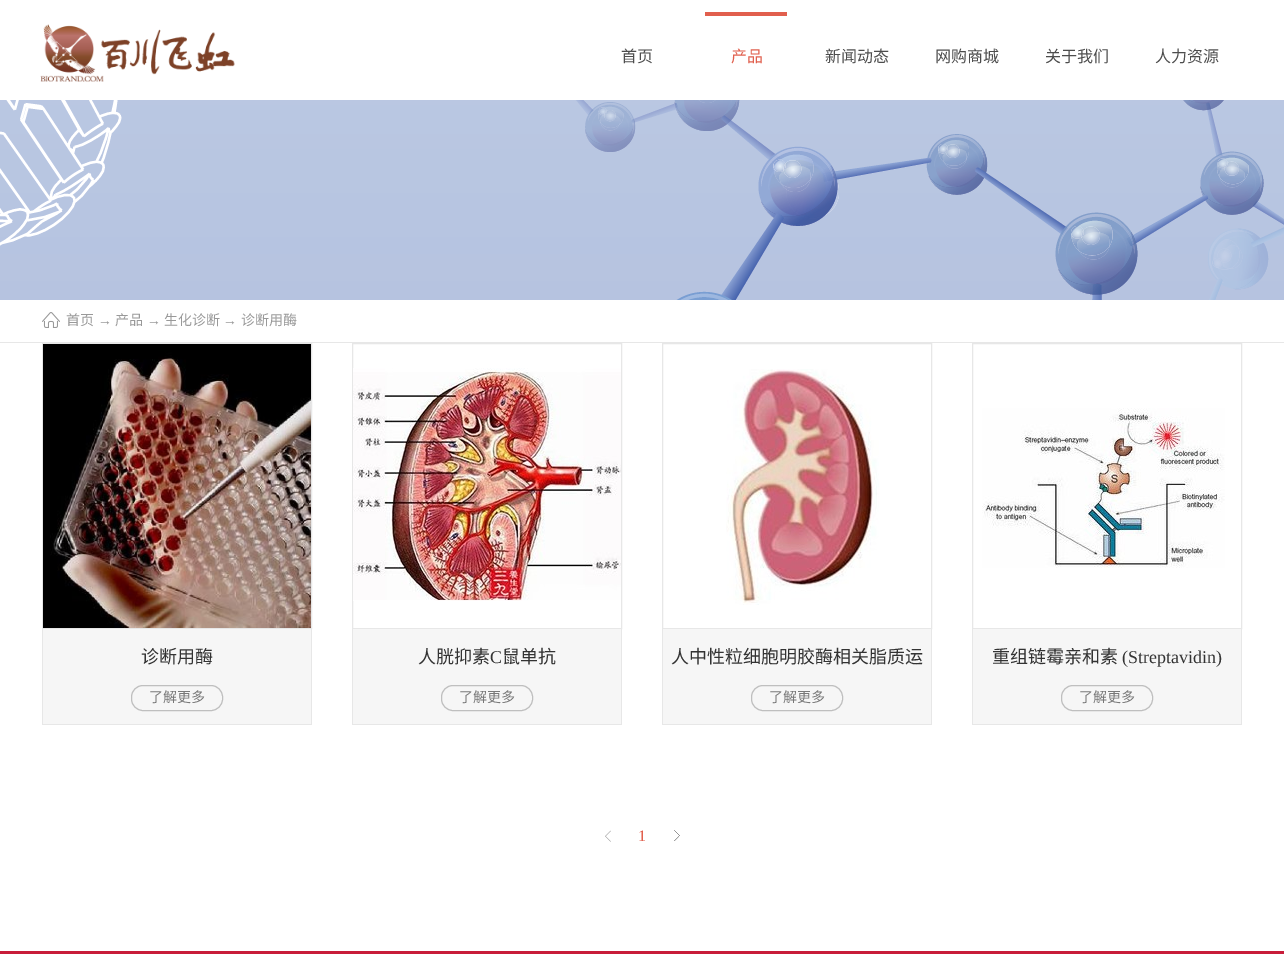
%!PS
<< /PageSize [1284 954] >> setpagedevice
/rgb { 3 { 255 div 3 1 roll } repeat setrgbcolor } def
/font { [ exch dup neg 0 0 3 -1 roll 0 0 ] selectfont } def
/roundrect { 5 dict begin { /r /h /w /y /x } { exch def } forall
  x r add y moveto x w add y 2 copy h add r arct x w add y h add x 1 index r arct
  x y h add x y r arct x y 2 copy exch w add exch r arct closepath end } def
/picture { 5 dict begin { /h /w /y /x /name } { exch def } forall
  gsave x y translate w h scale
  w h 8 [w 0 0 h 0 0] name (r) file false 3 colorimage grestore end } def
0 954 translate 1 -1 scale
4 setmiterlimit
255 255 255 rgb
0 0 1284 954 rectfill
(img/1.rgb) 40 24 195 58 picture
225 95 77 rgb
705 12 82 4 rectfill
(img/2.rgb) 0 100 1284 200 picture
231 231 231 rgb
0 342 1284 1 rectfill
(img/3.rgb) 42 312 18 16 picture
42.5 343.5 269 285 rectstroke
(img/4.rgb) 43 344 268 284 picture
[
  [43 629 268 95 246 246 246]
  [311 629 1 96 231 231 231]
  [42 724 270 1 231 231 231]
  [42 629 1 96 231 231 231]
] { aload pop rgb rectfill } forall
191 191 191 rgb
131.5 685.5 91 25 11.5 roundrect stroke
231 231 231 rgb
352.5 343.5 269 285 rectstroke
(img/5.rgb) 353 368 268 233 picture
[
  [353 629 268 95 246 246 246]
  [621 629 1 96 231 231 231]
  [352 724 270 1 231 231 231]
  [352 629 1 96 231 231 231]
] { aload pop rgb rectfill } forall
191 191 191 rgb
441.5 685.5 91 25 11.5 roundrect stroke
231 231 231 rgb
662.5 343.5 269 285 rectstroke
(img/6.rgb) 726 369 153 236 picture
[
  [663 629 268 95 246 246 246]
  [931 629 1 96 231 231 231]
  [662 724 270 1 231 231 231]
  [662 629 1 96 231 231 231]
] { aload pop rgb rectfill } forall
191 191 191 rgb
751.5 685.5 91 25 11.5 roundrect stroke
231 231 231 rgb
972.5 343.5 269 285 rectstroke
(img/7.rgb) 982 408 243 160 picture
[
  [973 629 268 95 246 246 246]
  [1241 629 1 96 231 231 231]
  [972 724 270 1 231 231 231]
  [972 629 1 96 231 231 231]
] { aload pop rgb rectfill } forall
191 191 191 rgb
1061.5 685.5 91 25 11.5 roundrect stroke
(img/8.rgb) 605 830 6 12 picture
(img/9.rgb) 674 830 6 11 picture
200 28 57 rgb
0 951 1284 3 rectfill
/NotoSansCJKSC-Regular 16 font
77 77 77 rgb
621 62 moveto (首页) show
225 95 77 rgb
731 62 moveto (产品) show
77 77 77 rgb
[
  [(新闻动态) 825 62]
  [(网购商城) 935 62]
  [(关于我们) 1045 62]
  [(人力资源) 1155 62]
] { aload pop moveto show } forall
/NotoSansCJKSC-Regular 14 font
153 153 153 rgb
66 325 moveto (首页) show
/LiberationSerif-Regular 14 font
98 325 moveto (→) show
/NotoSansCJKSC-Regular 14 font
115 325 moveto (产品) show
/LiberationSerif-Regular 14 font
147 325 moveto (→) show
/NotoSansCJKSC-Regular 14 font
164 325 moveto (生化诊断) show
/LiberationSerif-Regular 14 font
223 325 moveto (→) show
/NotoSansCJKSC-Regular 14 font
241 325 moveto (诊断用酶) show
/NotoSansCJKSC-Regular 18 font
51 51 51 rgb
141 663 moveto (诊断用酶) show
/NotoSansCJKSC-Regular 14 font
120 120 120 rgb
149 702 moveto (了解更多) show
/NotoSansCJKSC-Regular 18 font
51 51 51 rgb
418 663 moveto (人胱抑素) show
/LiberationSerif-Regular 18 font
490 663 moveto (C) show
/NotoSansCJKSC-Regular 18 font
502 663 moveto (鼠单抗) show
/NotoSansCJKSC-Regular 14 font
120 120 120 rgb
459 702 moveto (了解更多) show
/NotoSansCJKSC-Regular 18 font
51 51 51 rgb
671 663 moveto (人中性粒细胞明胶酶相关脂质运) show
/NotoSansCJKSC-Regular 14 font
120 120 120 rgb
769 702 moveto (了解更多) show
/NotoSansCJKSC-Regular 18 font
51 51 51 rgb
992 663 moveto (重组链霉亲和素) show
/LiberationSerif-Regular 18 font
1122 663 moveto (\(Streptavidin\)) show
/NotoSansCJKSC-Regular 14 font
120 120 120 rgb
1079 702 moveto (了解更多) show
/LiberationSerif-Regular 16 font
225 95 77 rgb
638 841 moveto (1) show
showpage
